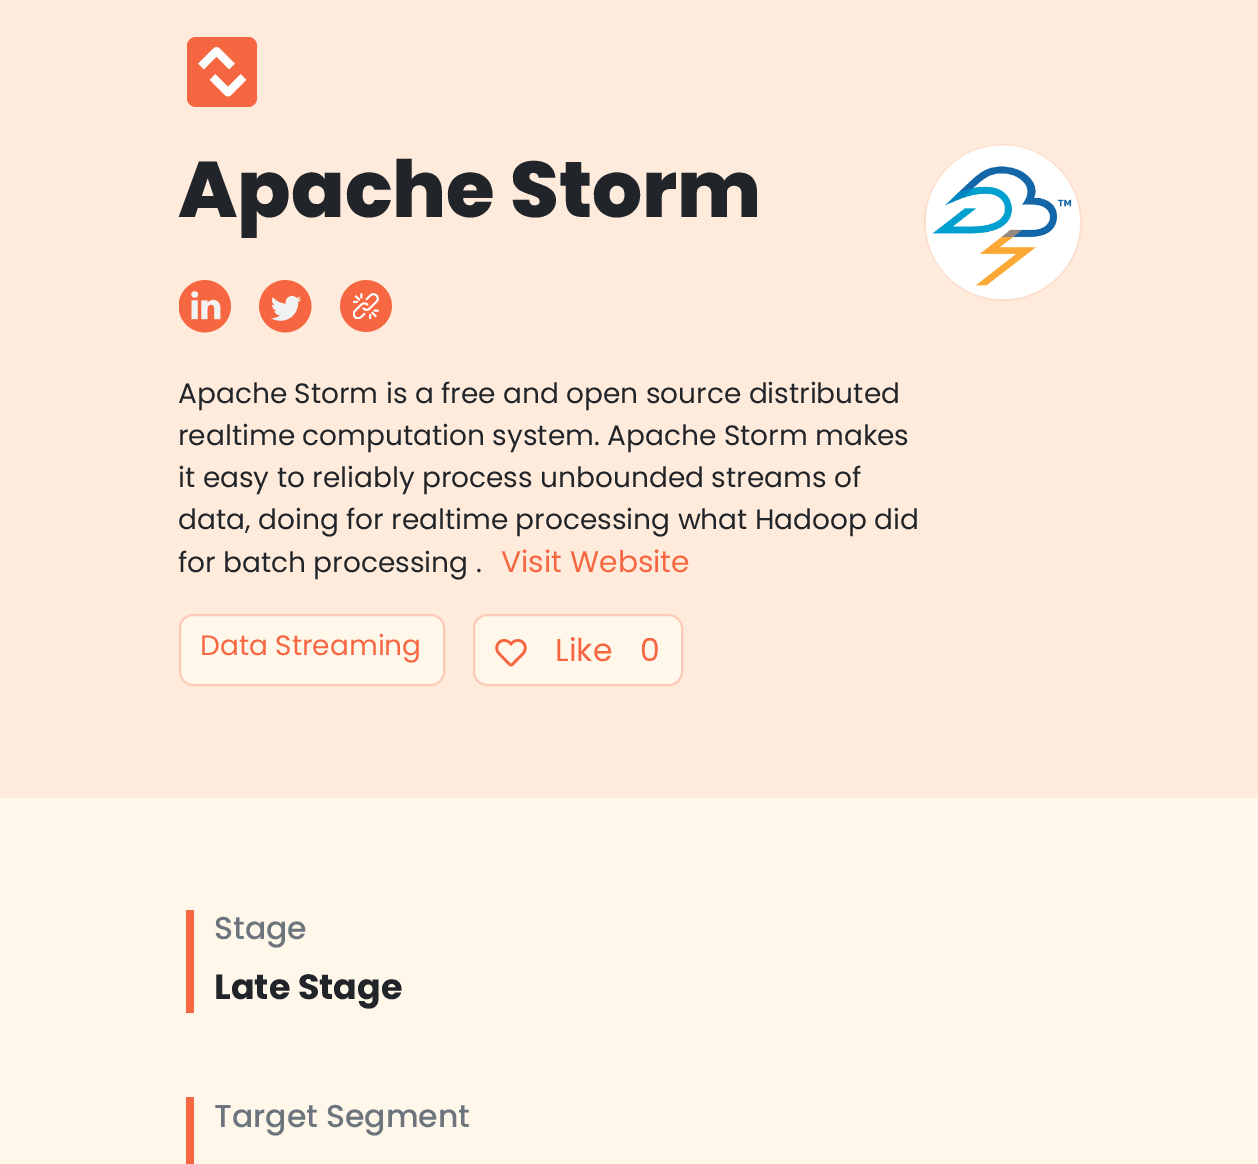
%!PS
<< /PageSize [1258 1164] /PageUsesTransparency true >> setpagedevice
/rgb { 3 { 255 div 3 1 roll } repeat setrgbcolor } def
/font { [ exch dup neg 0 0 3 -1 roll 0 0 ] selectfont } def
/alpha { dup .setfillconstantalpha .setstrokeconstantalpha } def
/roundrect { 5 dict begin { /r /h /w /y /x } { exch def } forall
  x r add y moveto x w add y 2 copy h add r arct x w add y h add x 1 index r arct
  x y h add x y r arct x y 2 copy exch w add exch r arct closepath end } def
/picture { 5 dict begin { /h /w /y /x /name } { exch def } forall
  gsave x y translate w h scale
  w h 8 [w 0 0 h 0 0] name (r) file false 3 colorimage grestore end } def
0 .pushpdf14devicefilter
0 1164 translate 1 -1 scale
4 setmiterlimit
255 247 234 rgb
0 0 1258 1164 rectfill
254 235 220 rgb
0 0 1258 798 rectfill
246 102 64 rgb
187 37 70 70 9 roundrect fill
253 253 253 rgb
7.9 setlinewidth
1 setlinejoin
201 66.5 moveto 216.5 51 lineto 232 66.5 lineto 243.5 77 moveto 228 92.5 lineto 212.5 77 lineto stroke
(img/1.rgb) 179 280 52 53 picture
(img/2.rgb) 259 280 53 53 picture
(img/3.rgb) 340 280 52 52 picture
255 255 255 rgb
925 145 156 155 77.5 roundrect gsave fill grestore
253 222 204 rgb
2 setlinewidth
0 setlinejoin
stroke
(img/4.rgb) 926 145 154 154 picture
255 247 234 rgb
179 614 266 72 14 roundrect fill
0.3 alpha
246 102 64 rgb
180 615 264 70 13 roundrect stroke
1 alpha
255 247 234 rgb
473 614 210 72 14 roundrect fill
0.3 alpha
246 102 64 rgb
474 615 208 70 13 roundrect stroke
1 alpha
(img/5.rgb) 495 639 32 28 picture
186 910 8 103 rectfill
186 1097 8 67 rectfill
/Poppins-ExtraBold 78.75 font
33 37 41 rgb
178 217 moveto (Apache Storm) show
/Poppins-Regular 28 font
[
  [(Apache Storm is a free and open source distributed) 178 403]
  [(realtime computation system. Apache Storm makes) 178 445]
  [(it easy to reliably process unbounded streams of) 178 487]
  [(data, doing for realtime processing what Hadoop did) 178 529]
  [(for batch processing .) 178 572]
] { aload pop moveto show } forall
/Poppins-Regular 29.75 font
246 102 64 rgb
501 572 moveto (Visit Website) show
/Poppins-Regular 28 font
200 655 moveto (Data Streaming) show
/Poppins-Regular 31.5 font
555 661 moveto (Like) show
640 661 moveto (0) show
/Poppins-Medium 31.5 font
108 117 125 rgb
214 939 moveto (Stage) show
/Poppins-Bold 35 font
33 37 41 rgb
214 999 moveto (Late Stage) show
/Poppins-Medium 31.5 font
108 117 125 rgb
214 1127 moveto (Target Segment) show
.poppdf14devicefilter showpage
